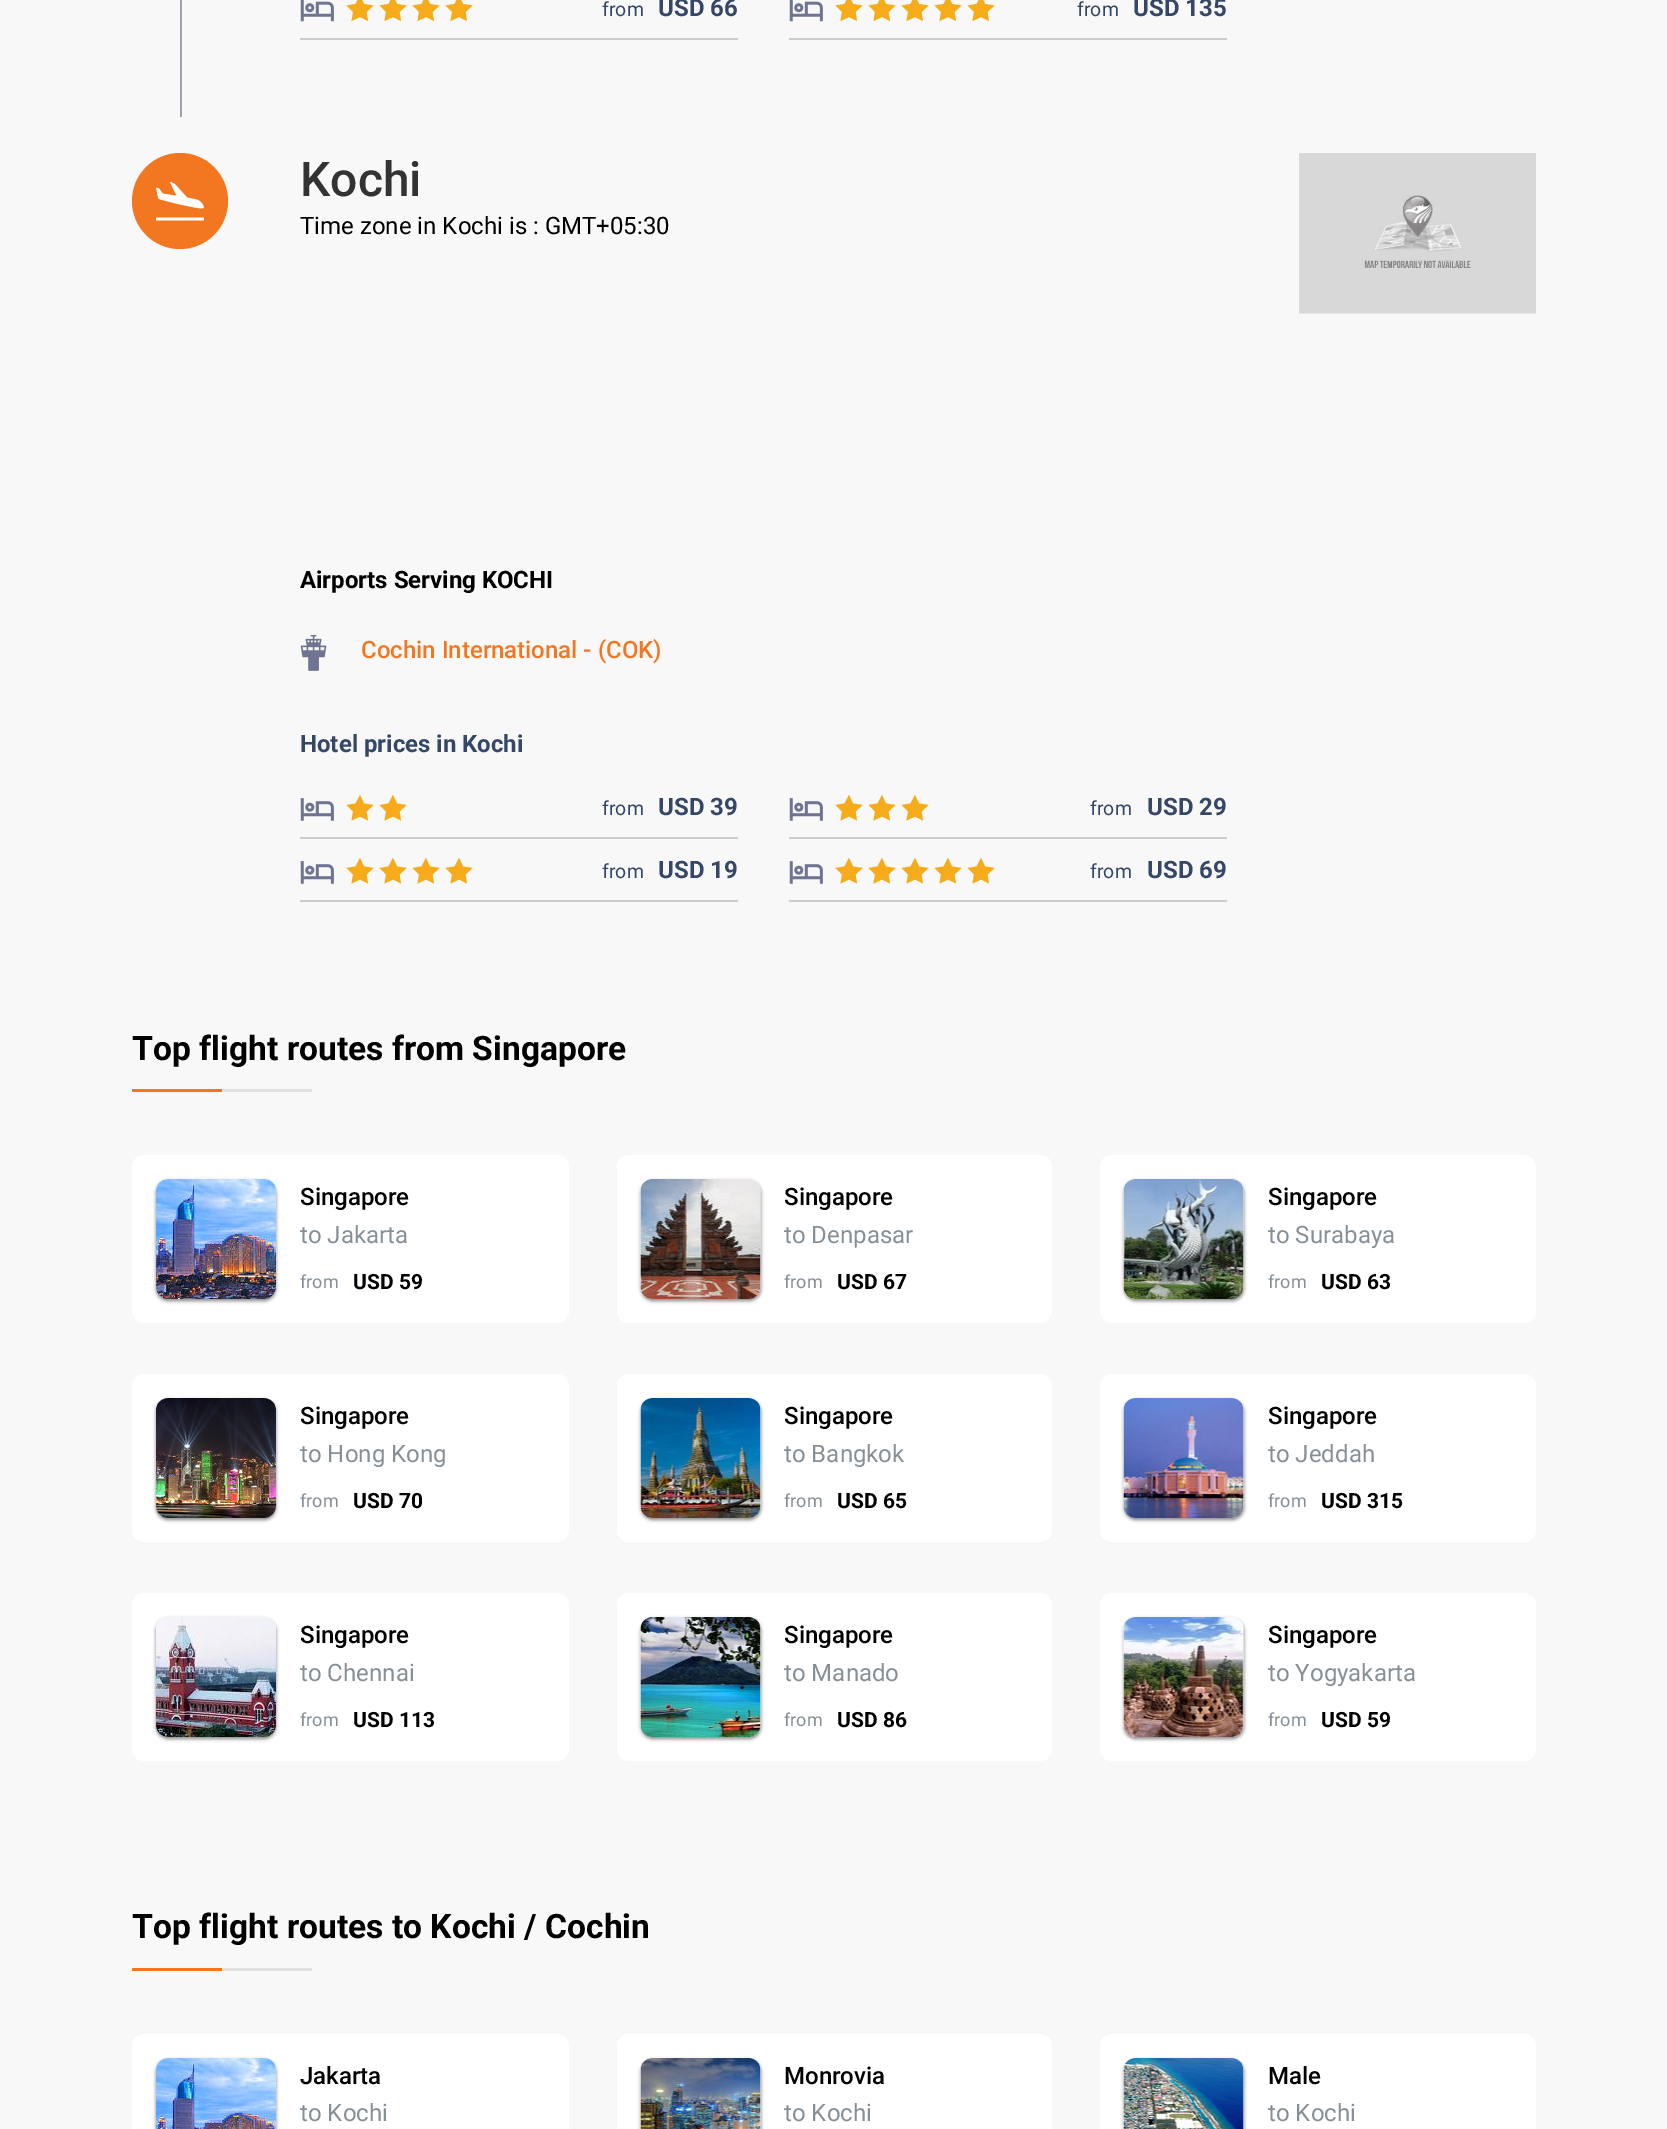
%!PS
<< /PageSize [1667 2129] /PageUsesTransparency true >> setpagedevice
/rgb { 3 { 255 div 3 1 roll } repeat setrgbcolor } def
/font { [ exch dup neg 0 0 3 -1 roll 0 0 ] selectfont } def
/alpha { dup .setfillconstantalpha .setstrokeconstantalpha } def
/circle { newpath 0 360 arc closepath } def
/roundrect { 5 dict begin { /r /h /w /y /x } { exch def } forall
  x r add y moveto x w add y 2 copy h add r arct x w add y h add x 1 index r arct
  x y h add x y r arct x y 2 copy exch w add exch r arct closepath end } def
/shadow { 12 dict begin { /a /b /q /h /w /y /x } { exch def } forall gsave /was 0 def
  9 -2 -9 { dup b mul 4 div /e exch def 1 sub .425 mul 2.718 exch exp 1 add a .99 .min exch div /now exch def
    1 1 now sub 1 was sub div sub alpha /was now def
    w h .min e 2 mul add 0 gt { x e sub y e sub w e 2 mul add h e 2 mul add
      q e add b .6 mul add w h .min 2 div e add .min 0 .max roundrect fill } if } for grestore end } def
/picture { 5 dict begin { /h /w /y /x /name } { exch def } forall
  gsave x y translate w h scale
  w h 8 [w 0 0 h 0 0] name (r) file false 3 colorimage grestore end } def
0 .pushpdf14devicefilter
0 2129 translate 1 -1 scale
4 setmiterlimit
248 248 248 rgb
0 0 1667 2129 rectfill
156 163 175 rgb
180 0 2 117 rectfill
204 204 204 rgb
300 38 438 2 rectfill
(img/1.rgb) 300 0 34 22 picture
246 172 26 rgb
364 4 moveto 373.5 5.5 lineto 366.5 12 lineto 368 21 lineto 360 17 lineto 351.5 21 lineto 353 12 lineto 346.5 5.5 lineto 355.5 4 lineto 360 -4.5 lineto closepath 397 4 moveto 406.5 5.5 lineto 399.5 12 lineto 401 21 lineto 393 17 lineto 384.5 21 lineto 386 12 lineto 379.5 5.5 lineto 388.5 4 lineto 393 -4.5 lineto closepath fill
430 4 moveto 439.5 5.5 lineto 432.5 12 lineto 434 21 lineto 426 17 lineto 417.5 21 lineto 419 12 lineto 412.5 5.5 lineto 421.5 4 lineto 426 -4.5 lineto closepath 463 4 moveto 472.5 5.5 lineto 465.5 12 lineto 467 21 lineto 459 17 lineto 450.5 21 lineto 452 12 lineto 445.5 5.5 lineto 454.5 4 lineto 459 -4.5 lineto closepath fill
204 204 204 rgb
789 38 438 2 rectfill
(img/1.rgb) 789 0 34 22 picture
246 172 26 rgb
853 4 moveto 862.5 5.5 lineto 855.5 12 lineto 857 21 lineto 849 17 lineto 840.5 21 lineto 842 12 lineto 835.5 5.5 lineto 844.5 4 lineto 849 -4.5 lineto closepath 886 4 moveto 895.5 5.5 lineto 888.5 12 lineto 890 21 lineto 882 17 lineto 873.5 21 lineto 875 12 lineto 868.5 5.5 lineto 877.5 4 lineto 882 -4.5 lineto closepath fill
919 4 moveto 928.5 5.5 lineto 921.5 12 lineto 923 21 lineto 915 17 lineto 906.5 21 lineto 908 12 lineto 901.5 5.5 lineto 910.5 4 lineto 915 -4.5 lineto closepath 952 4 moveto 961.5 5.5 lineto 954.5 12 lineto 956 21 lineto 948 17 lineto 939.5 21 lineto 941 12 lineto 934.5 5.5 lineto 943.5 4 lineto 948 -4.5 lineto closepath fill
985 4 moveto 994.5 5.5 lineto 987.5 12 lineto 989 21 lineto 981 17 lineto 972.5 21 lineto 974 12 lineto 967.5 5.5 lineto 976.5 4 lineto 981 -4.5 lineto closepath fill
243 119 33 rgb
180 201 48 circle fill
(img/2.rgb) 156 182 48 39 picture
(img/3.rgb) 300 635 27 36 picture
204 204 204 rgb
300 837 438 2 rectfill
(img/4.rgb) 300 798 34 23 picture
246 172 26 rgb
364 803.5 moveto 373.5 805 lineto 366.5 811.5 lineto 368 820.5 lineto 360 816.5 lineto 351.5 820.5 lineto 353 811.5 lineto 346.5 805 lineto 355.5 803.5 lineto 360 795 lineto closepath 397 803.5 moveto 406.5 805 lineto 399.5 811.5 lineto 401 820.5 lineto 393 816.5 lineto 384.5 820.5 lineto 386 811.5 lineto 379.5 805 lineto 388.5 803.5 lineto 393 795 lineto closepath fill
204 204 204 rgb
789 837 438 2 rectfill
(img/4.rgb) 789 798 34 23 picture
246 172 26 rgb
853 803.5 moveto 862.5 805 lineto 855.5 811.5 lineto 857 820.5 lineto 849 816.5 lineto 840.5 820.5 lineto 842 811.5 lineto 835.5 805 lineto 844.5 803.5 lineto 849 795 lineto closepath 886 803.5 moveto 895.5 805 lineto 888.5 811.5 lineto 890 820.5 lineto 882 816.5 lineto 873.5 820.5 lineto 875 811.5 lineto 868.5 805 lineto 877.5 803.5 lineto 882 795 lineto closepath fill
919 803.5 moveto 928.5 805 lineto 921.5 811.5 lineto 923 820.5 lineto 915 816.5 lineto 906.5 820.5 lineto 908 811.5 lineto 901.5 805 lineto 910.5 803.5 lineto 915 795 lineto closepath fill
204 204 204 rgb
300 900 438 2 rectfill
(img/4.rgb) 300 861 34 23 picture
246 172 26 rgb
364 866.5 moveto 373.5 868 lineto 366.5 874.5 lineto 368 883.5 lineto 360 879.5 lineto 351.5 883.5 lineto 353 874.5 lineto 346.5 868 lineto 355.5 866.5 lineto 360 858 lineto closepath 397 866.5 moveto 406.5 868 lineto 399.5 874.5 lineto 401 883.5 lineto 393 879.5 lineto 384.5 883.5 lineto 386 874.5 lineto 379.5 868 lineto 388.5 866.5 lineto 393 858 lineto closepath fill
430 866.5 moveto 439.5 868 lineto 432.5 874.5 lineto 434 883.5 lineto 426 879.5 lineto 417.5 883.5 lineto 419 874.5 lineto 412.5 868 lineto 421.5 866.5 lineto 426 858 lineto closepath 463 866.5 moveto 472.5 868 lineto 465.5 874.5 lineto 467 883.5 lineto 459 879.5 lineto 450.5 883.5 lineto 452 874.5 lineto 445.5 868 lineto 454.5 866.5 lineto 459 858 lineto closepath fill
204 204 204 rgb
789 900 438 2 rectfill
(img/4.rgb) 789 861 34 23 picture
246 172 26 rgb
853 866.5 moveto 862.5 868 lineto 855.5 874.5 lineto 857 883.5 lineto 849 879.5 lineto 840.5 883.5 lineto 842 874.5 lineto 835.5 868 lineto 844.5 866.5 lineto 849 858 lineto closepath 886 866.5 moveto 895.5 868 lineto 888.5 874.5 lineto 890 883.5 lineto 882 879.5 lineto 873.5 883.5 lineto 875 874.5 lineto 868.5 868 lineto 877.5 866.5 lineto 882 858 lineto closepath fill
919 866.5 moveto 928.5 868 lineto 921.5 874.5 lineto 923 883.5 lineto 915 879.5 lineto 906.5 883.5 lineto 908 874.5 lineto 901.5 868 lineto 910.5 866.5 lineto 915 858 lineto closepath 952 866.5 moveto 961.5 868 lineto 954.5 874.5 lineto 956 883.5 lineto 948 879.5 lineto 939.5 883.5 lineto 941 874.5 lineto 934.5 868 lineto 943.5 866.5 lineto 948 858 lineto closepath fill
985 866.5 moveto 994.5 868 lineto 987.5 874.5 lineto 989 883.5 lineto 981 879.5 lineto 972.5 883.5 lineto 974 874.5 lineto 967.5 868 lineto 976.5 866.5 lineto 981 858 lineto closepath fill
(img/5.rgb) 1299 153 237 161 picture
225 225 225 rgb
222 1089 90 3 rectfill
243 119 33 rgb
132 1089 90 3 rectfill
255 255 255 rgb
132 1155 437 168 12 roundrect fill
0 0 0 rgb
156 1181 120 120 12 1.5 0.3 shadow
156 1181 120 120 12 2 0.2 shadow
(img/6.rgb) 156 1179 120 120 picture
255 255 255 rgb
617 1155 435 168 12 roundrect fill
0 0 0 rgb
641 1181 120 120 12 1.5 0.3 shadow
641 1181 120 120 12 2 0.2 shadow
(img/7.rgb) 640 1179 121 120 picture
255 255 255 rgb
1100 1155 436 168 12 roundrect fill
0 0 0 rgb
1124 1181 120 120 12 1.5 0.3 shadow
1124 1181 120 120 12 2 0.2 shadow
(img/8.rgb) 1123 1179 121 120 picture
255 255 255 rgb
132 1374 437 168 12 roundrect fill
0 0 0 rgb
156 1400 120 120 12 1.5 0.3 shadow
156 1400 120 120 12 2 0.2 shadow
(img/9.rgb) 156 1398 120 120 picture
255 255 255 rgb
617 1374 435 168 12 roundrect fill
0 0 0 rgb
641 1400 120 120 12 1.5 0.3 shadow
641 1400 120 120 12 2 0.2 shadow
(img/10.rgb) 640 1398 121 120 picture
255 255 255 rgb
1100 1374 436 168 12 roundrect fill
0 0 0 rgb
1124 1400 120 120 12 1.5 0.3 shadow
1124 1400 120 120 12 2 0.2 shadow
(img/11.rgb) 1123 1398 121 120 picture
255 255 255 rgb
132 1593 437 168 12 roundrect fill
0 0 0 rgb
156 1619 120 120 12 1.5 0.3 shadow
156 1619 120 120 12 2 0.2 shadow
(img/12.rgb) 156 1617 120 120 picture
255 255 255 rgb
617 1593 435 168 12 roundrect fill
0 0 0 rgb
641 1619 120 120 12 1.5 0.3 shadow
641 1619 120 120 12 2 0.2 shadow
(img/13.rgb) 640 1617 121 120 picture
255 255 255 rgb
1100 1593 436 168 12 roundrect fill
0 0 0 rgb
1124 1619 120 120 12 1.5 0.3 shadow
1124 1619 120 120 12 2 0.2 shadow
(img/14.rgb) 1123 1617 121 120 picture
225 225 225 rgb
222 1968 90 3 rectfill
243 119 33 rgb
132 1968 90 3 rectfill
255 255 255 rgb
132 2034 437 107 12 roundrect fill
0 0 0 rgb
156 2060 120 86 12 1.5 0.3 shadow
156 2060 120 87 12 2 0.2 shadow
(img/15.rgb) 156 2058 120 71 picture
255 255 255 rgb
617 2034 435 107 12 roundrect fill
0 0 0 rgb
641 2060 120 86 12 1.5 0.3 shadow
641 2060 120 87 12 2 0.2 shadow
(img/16.rgb) 640 2058 121 71 picture
255 255 255 rgb
1100 2034 436 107 12 roundrect fill
0 0 0 rgb
1124 2060 120 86 12 1.5 0.3 shadow
1124 2060 120 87 12 2 0.2 shadow
(img/17.rgb) 1123 2058 121 71 picture
/Roboto-Regular 19.5 font
52 71 103 rgb
602 16 moveto (from) show
/Roboto-Bold 24 font
658 16 moveto (USD 66) show
/Roboto-Regular 19.5 font
1077 16 moveto (from) show
/Roboto-Bold 24 font
1133 16 moveto (USD 135) show
/Roboto-Medium 48 font
51 51 51 rgb
300 196 moveto (Kochi) show
/Roboto-Regular 24 font
0 0 0 rgb
300 234 moveto (Time zone in Kochi is : GMT+05:30) show
/Roboto-Bold 24 font
300 588 moveto (Airports Serving KOCHI) show
/Roboto-Medium 24 font
243 119 33 rgb
361 658 moveto (Cochin International - \(COK\)) show
/Roboto-Bold 24 font
52 71 103 rgb
300 752 moveto (Hotel prices in Kochi) show
/Roboto-Regular 19.5 font
602 815 moveto (from) show
/Roboto-Bold 24 font
658 815 moveto (USD 39) show
/Roboto-Regular 19.5 font
1090 815 moveto (from) show
/Roboto-Bold 24 font
1147 815 moveto (USD 29) show
/Roboto-Regular 19.5 font
602 878 moveto (from) show
/Roboto-Bold 24 font
658 878 moveto (USD 19) show
/Roboto-Regular 19.5 font
1090 878 moveto (from) show
/Roboto-Bold 24 font
1147 878 moveto (USD 69) show
/Roboto-Bold 33.6 font
0 0 0 rgb
132 1060 moveto (Top flight routes from Singapore) show
/Roboto-Medium 24 font
300 1205 moveto (Singapore) show
/Roboto-Regular 24 font
134 142 150 rgb
300 1243 moveto (to Jakarta) show
/Roboto-Regular 18 font
300 1288 moveto (from) show
/Roboto-Bold 21 font
0 0 0 rgb
353 1289 moveto (USD 59) show
/Roboto-Medium 24 font
784 1205 moveto (Singapore) show
/Roboto-Regular 24 font
134 142 150 rgb
784 1243 moveto (to Denpasar) show
/Roboto-Regular 18 font
784 1288 moveto (from) show
/Roboto-Bold 21 font
0 0 0 rgb
837 1289 moveto (USD 67) show
/Roboto-Medium 24 font
1268 1205 moveto (Singapore) show
/Roboto-Regular 24 font
134 142 150 rgb
1268 1243 moveto (to Surabaya) show
/Roboto-Regular 18 font
1268 1288 moveto (from) show
/Roboto-Bold 21 font
0 0 0 rgb
1321 1289 moveto (USD 63) show
/Roboto-Medium 24 font
300 1424 moveto (Singapore) show
/Roboto-Regular 24 font
134 142 150 rgb
300 1462 moveto (to Hong Kong) show
/Roboto-Regular 18 font
300 1507 moveto (from) show
/Roboto-Bold 21 font
0 0 0 rgb
353 1508 moveto (USD 70) show
/Roboto-Medium 24 font
784 1424 moveto (Singapore) show
/Roboto-Regular 24 font
134 142 150 rgb
784 1462 moveto (to Bangkok) show
/Roboto-Regular 18 font
784 1507 moveto (from) show
/Roboto-Bold 21 font
0 0 0 rgb
837 1508 moveto (USD 65) show
/Roboto-Medium 24 font
1268 1424 moveto (Singapore) show
/Roboto-Regular 24 font
134 142 150 rgb
1268 1462 moveto (to Jeddah) show
/Roboto-Regular 18 font
1268 1507 moveto (from) show
/Roboto-Bold 21 font
0 0 0 rgb
1321 1508 moveto (USD 315) show
/Roboto-Medium 24 font
300 1643 moveto (Singapore) show
/Roboto-Regular 24 font
134 142 150 rgb
300 1681 moveto (to Chennai) show
/Roboto-Regular 18 font
300 1726 moveto (from) show
/Roboto-Bold 21 font
0 0 0 rgb
353 1727 moveto (USD 113) show
/Roboto-Medium 24 font
784 1643 moveto (Singapore) show
/Roboto-Regular 24 font
134 142 150 rgb
784 1681 moveto (to Manado) show
/Roboto-Regular 18 font
784 1726 moveto (from) show
/Roboto-Bold 21 font
0 0 0 rgb
837 1727 moveto (USD 86) show
/Roboto-Medium 24 font
1268 1643 moveto (Singapore) show
/Roboto-Regular 24 font
134 142 150 rgb
1268 1681 moveto (to Yogyakarta) show
/Roboto-Regular 18 font
1268 1726 moveto (from) show
/Roboto-Bold 21 font
0 0 0 rgb
1321 1727 moveto (USD 59) show
/Roboto-Bold 33.6 font
132 1938 moveto (Top flight routes to Kochi / Cochin) show
/Roboto-Medium 24 font
300 2084 moveto (Jakarta) show
/Roboto-Regular 24 font
134 142 150 rgb
300 2121 moveto (to Kochi) show
/Roboto-Medium 24 font
0 0 0 rgb
784 2084 moveto (Monrovia) show
/Roboto-Regular 24 font
134 142 150 rgb
784 2121 moveto (to Kochi) show
/Roboto-Medium 24 font
0 0 0 rgb
1268 2084 moveto (Male) show
/Roboto-Regular 24 font
134 142 150 rgb
1268 2121 moveto (to Kochi) show
.poppdf14devicefilter showpage
